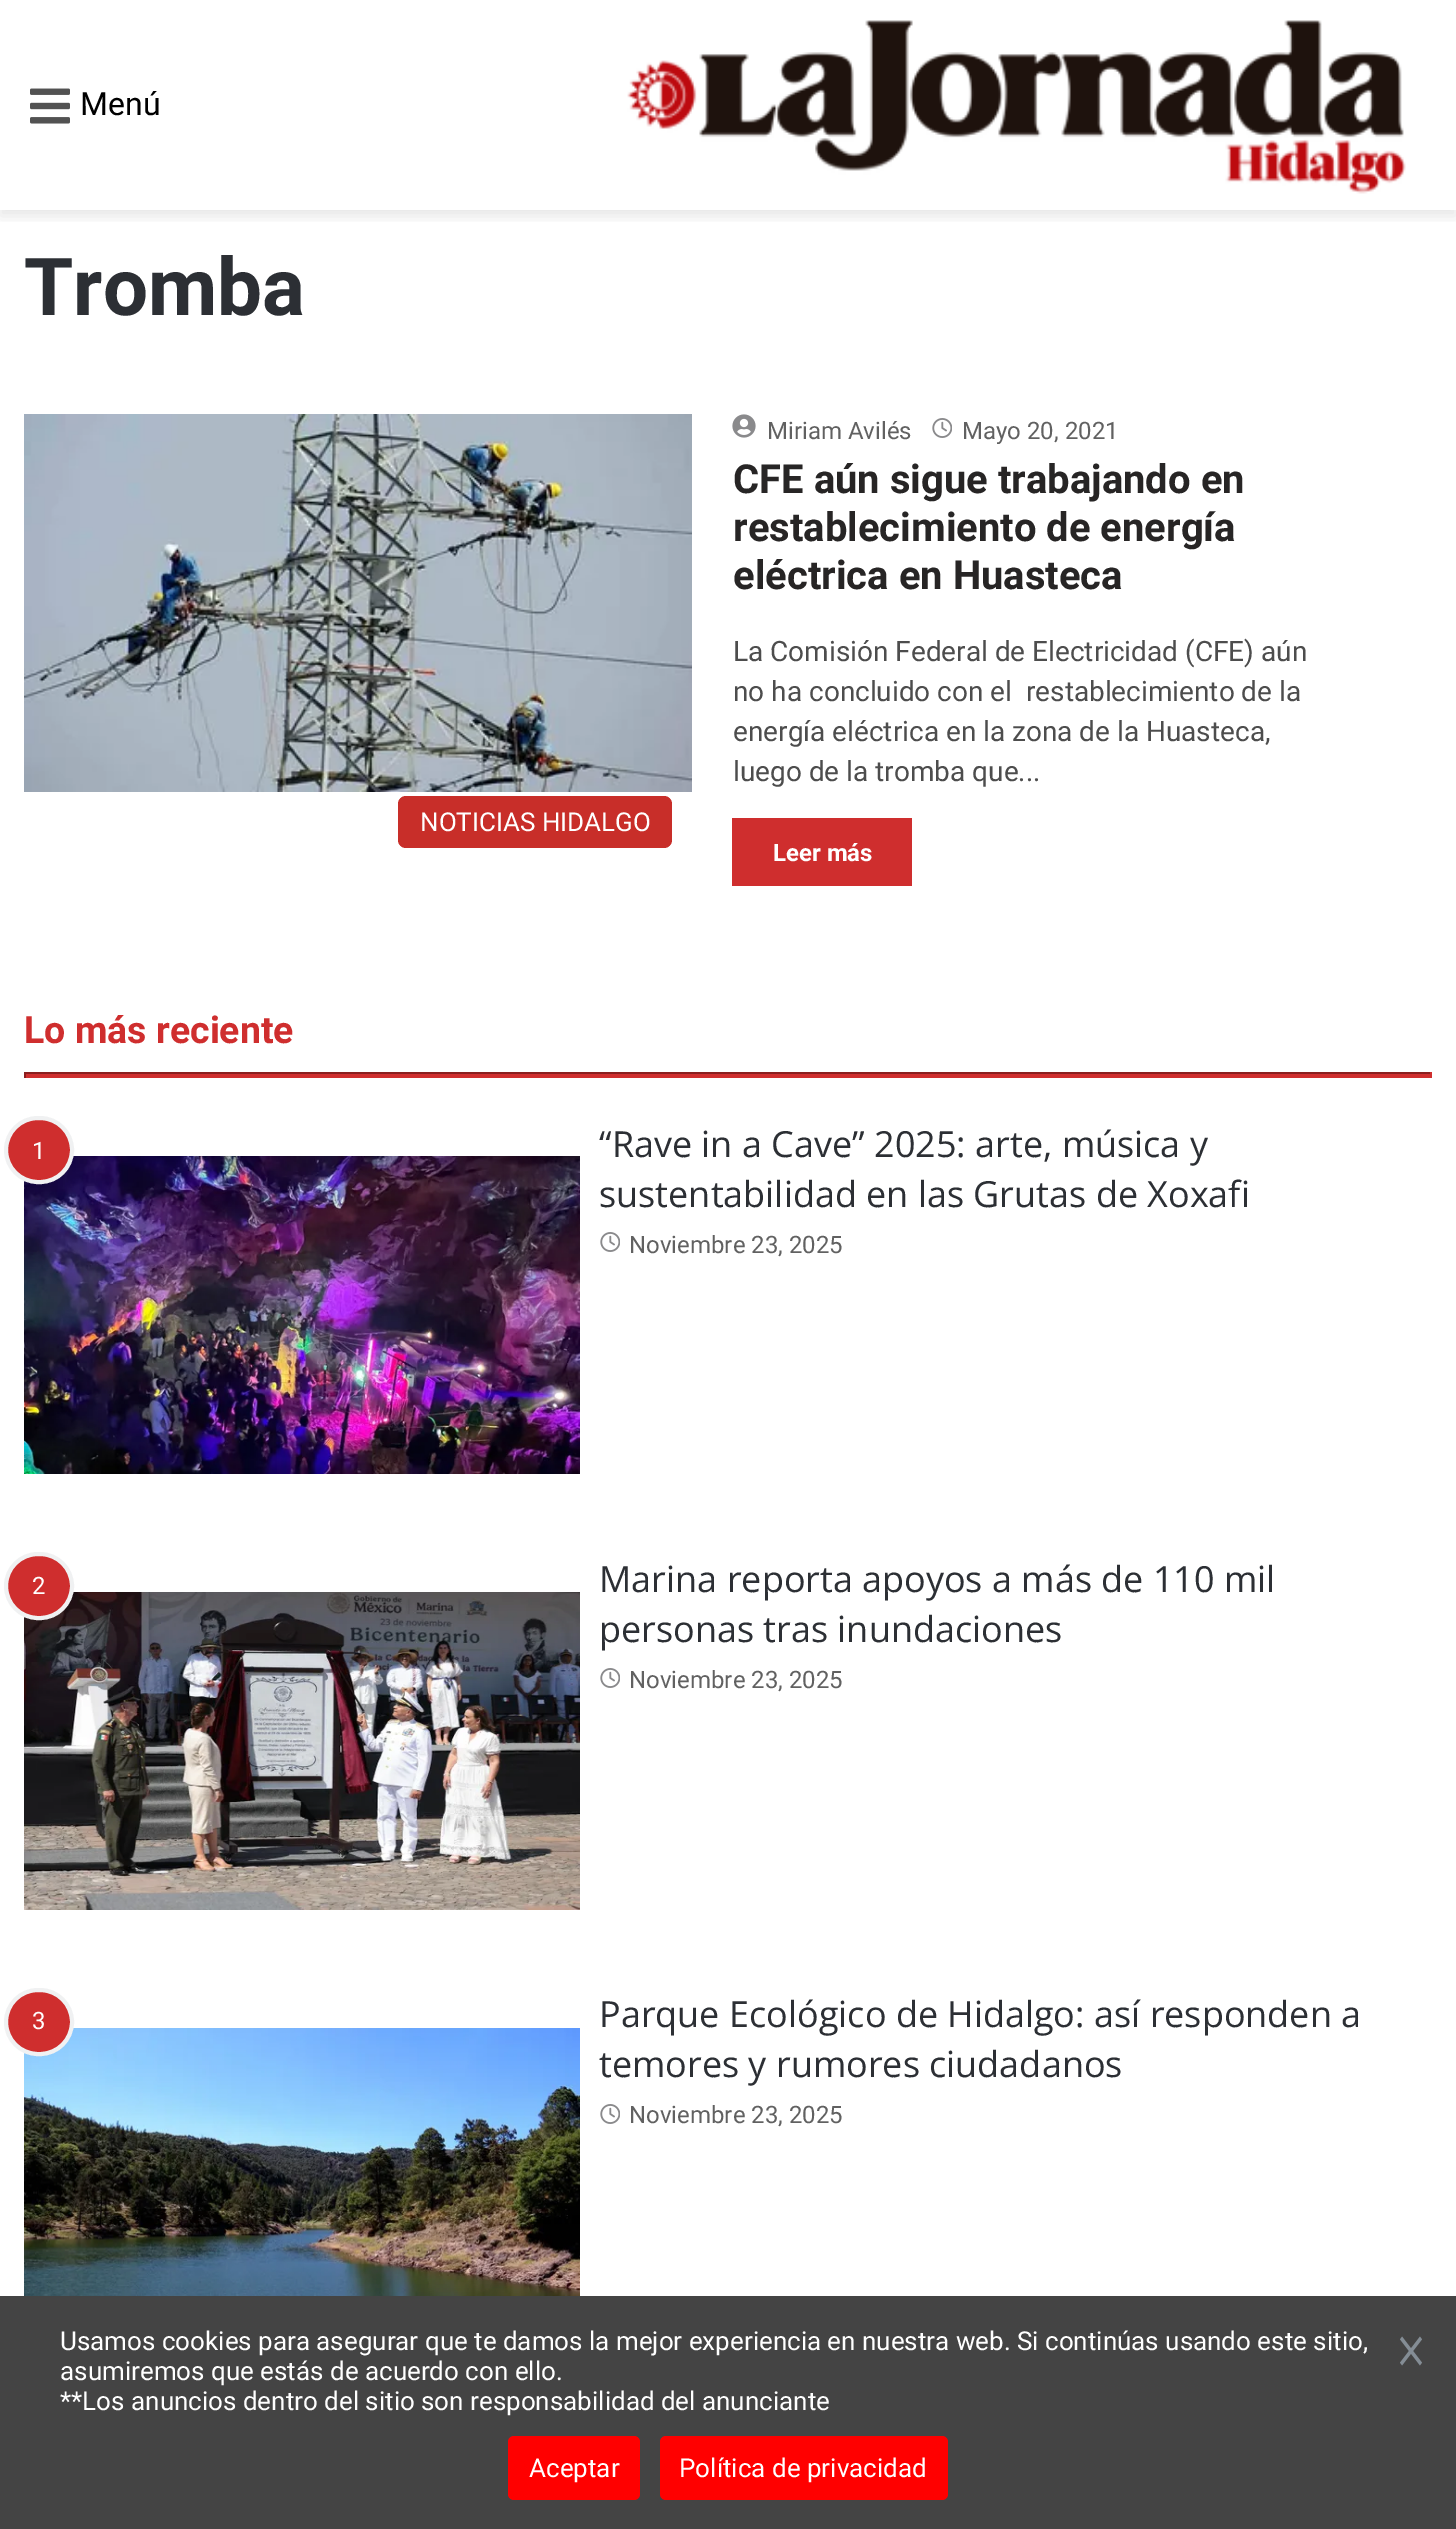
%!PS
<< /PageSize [1456 2529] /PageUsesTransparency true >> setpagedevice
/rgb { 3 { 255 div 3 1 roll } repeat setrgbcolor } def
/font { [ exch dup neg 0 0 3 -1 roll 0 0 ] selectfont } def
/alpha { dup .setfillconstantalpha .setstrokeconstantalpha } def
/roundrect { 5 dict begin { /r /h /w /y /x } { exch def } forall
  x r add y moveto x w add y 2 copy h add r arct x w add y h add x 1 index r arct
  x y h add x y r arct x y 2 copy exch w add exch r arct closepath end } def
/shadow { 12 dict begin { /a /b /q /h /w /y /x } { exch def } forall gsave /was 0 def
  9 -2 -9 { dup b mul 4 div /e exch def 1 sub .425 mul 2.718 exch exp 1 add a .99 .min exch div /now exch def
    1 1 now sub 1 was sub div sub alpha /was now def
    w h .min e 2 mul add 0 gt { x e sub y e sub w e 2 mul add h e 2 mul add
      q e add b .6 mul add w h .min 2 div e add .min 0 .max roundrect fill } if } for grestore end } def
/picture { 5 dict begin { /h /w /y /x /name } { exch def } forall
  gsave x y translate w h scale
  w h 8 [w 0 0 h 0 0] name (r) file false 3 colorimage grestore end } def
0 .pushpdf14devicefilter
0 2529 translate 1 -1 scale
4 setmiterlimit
255 255 255 rgb
0 0 1456 2529 rectfill
gsave
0 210 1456 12 rectclip
0 0 0 rgb
0 6 1456 210 0 7 0.1 shadow
grestore
(img/1.rgb) 30 88 40 36 picture
(img/2.rgb) 627 20 779 174 picture
(img/3.rgb) 24 414 668 378 picture
200 46 41 rgb
398 796 274 52 8 roundrect fill
(img/4.rgb) 732 414 24 24 picture
(img/5.rgb) 932 418 20 20 picture
[
  [732 818 180 68 207 46 46]
  [24 1074 1408 4 207 46 46]
  [24 1072 1408 2 138 31 31]
  [1430 1072 2 6 207 46 46]
  [24 1072 2 6 138 31 31]
] { aload pop rgb rectfill } forall
(img/6.rgb) 24 1156 556 318 picture
207 46 46 rgb
6 1118 66 64 32 roundrect gsave fill grestore
240 241 242 rgb
4 setlinewidth
stroke
(img/5.rgb) 600 1232 20 20 picture
(img/7.rgb) 24 1592 556 318 picture
207 46 46 rgb
6 1554 66 64 32 roundrect gsave fill grestore
240 241 242 rgb
stroke
(img/5.rgb) 600 1668 20 20 picture
(img/8.rgb) 24 2028 556 268 picture
207 46 46 rgb
6 1990 66 64 32 roundrect gsave fill grestore
240 241 242 rgb
stroke
(img/5.rgb) 600 2104 20 20 picture
68 68 68 rgb
0 2296 1456 233 rectfill
(img/9.rgb) 1400 2336 22 30 picture
255 0 0 rgb
508 2436 132 64 6 roundrect fill
660 2436 288 64 6 roundrect fill
/Roboto-Regular 32 font
0 0 0 rgb
80 115 moveto (Menú) show
/Roboto-Bold 80 font
44 47 52 rgb
24 315 moveto (Tromba) show
/Roboto-Regular 26 font
255 255 255 rgb
420 831 moveto (NOTICIAS HIDALGO) show
/Roboto-Regular 24 font
97 97 97 rgb
767 439 moveto (Miriam Avilés) show
962 439 moveto (Mayo 20, 2021) show
/Roboto-Bold 40 font
39 37 37 rgb
[
  [(CFE aún sigue trabajando en) 733 493]
  [(restablecimiento de energía) 733 541]
  [(eléctrica en Huasteca) 733 589]
] { aload pop moveto show } forall
/Roboto-Regular 28 font
77 77 77 rgb
[
  [(La Comisión Federal de Electricidad \(CFE\) aún) 733 661]
  [(no ha concluido con el  restablecimiento de la) 733 701]
  [(energía eléctrica en la zona de la Huasteca,) 733 741]
  [(luego de la tromba que...) 733 781]
] { aload pop moveto show } forall
/Roboto-Bold 24 font
255 255 255 rgb
773 861 moveto (Leer más) show
/Roboto-Bold 37.5 font
207 46 46 rgb
24 1043 moveto (Lo más reciente) show
/Roboto-Regular 24 font
255 255 255 rgb
32 1159 moveto (1) show
/OpenSans-Regular 36 font
44 47 52 rgb
599 1157 moveto (“Rave in a Cave” 2025: arte, música y) show
599 1207 moveto (sustentabilidad en las Grutas de Xoxafi) show
/Roboto-Regular 24 font
97 97 97 rgb
629 1253 moveto (Noviembre 23, 2025) show
255 255 255 rgb
32 1594 moveto (2) show
/OpenSans-Regular 36 font
44 47 52 rgb
599 1592 moveto (Marina reporta apoyos a más de 110 mil) show
599 1642 moveto (personas tras inundaciones) show
/Roboto-Regular 24 font
97 97 97 rgb
629 1688 moveto (Noviembre 23, 2025) show
255 255 255 rgb
32 2029 moveto (3) show
/OpenSans-Regular 36 font
44 47 52 rgb
599 2027 moveto (Parque Ecológico de Hidalgo: así responden a) show
599 2077 moveto (temores y rumores ciudadanos) show
/Roboto-Regular 24 font
97 97 97 rgb
629 2123 moveto (Noviembre 23, 2025) show
/Roboto-Regular 26 font
255 255 255 rgb
[
  [(Usamos cookies para asegurar que te damos la mejor experiencia en nuestra web. Si continúas usando este sitio,) 60 2350]
  [(asumiremos que estás de acuerdo con ello.) 60 2380]
  [(**Los anuncios dentro del sitio son responsabilidad del anunciante) 60 2410]
  [(Aceptar) 529 2477]
  [(Política de privacidad) 679 2477]
] { aload pop moveto show } forall
.poppdf14devicefilter showpage
